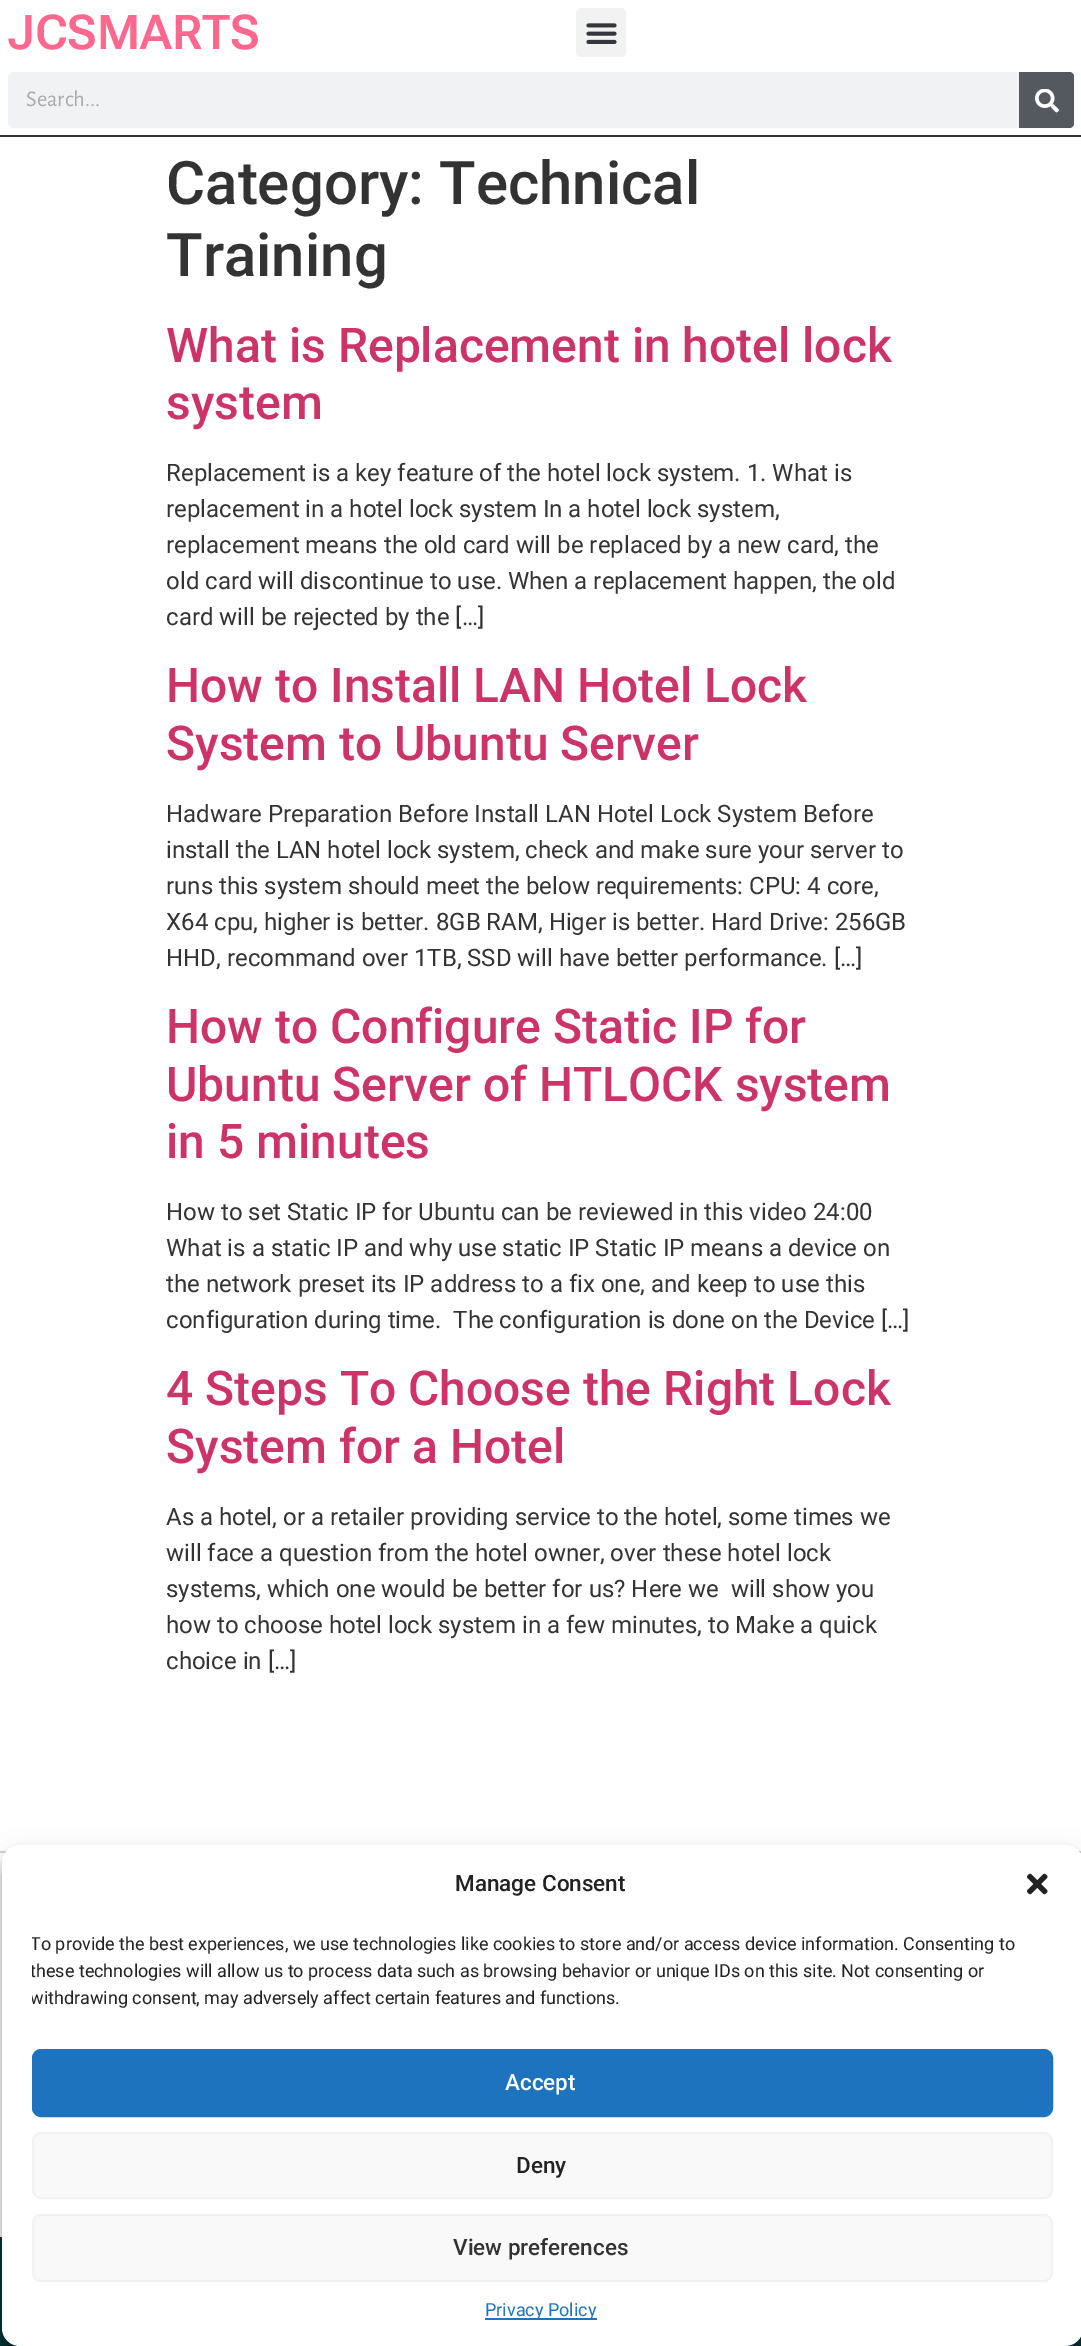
%!PS
<< /PageSize [1081 2346] /PageUsesTransparency true >> setpagedevice
/rgb { 3 { 255 div 3 1 roll } repeat setrgbcolor } def
/font { [ exch dup neg 0 0 3 -1 roll 0 0 ] selectfont } def
/alpha { dup .setfillconstantalpha .setstrokeconstantalpha } def
/roundrect { 5 dict begin { /r /h /w /y /x } { exch def } forall
  x r add y moveto x w add y 2 copy h add r arct x w add y h add x 1 index r arct
  x y h add x y r arct x y 2 copy exch w add exch r arct closepath end } def
/shadow { 12 dict begin { /a /b /q /h /w /y /x } { exch def } forall gsave /was 0 def
  9 -2 -9 { dup b mul 4 div /e exch def 1 sub .425 mul 2.718 exch exp 1 add a .99 .min exch div /now exch def
    1 1 now sub 1 was sub div sub alpha /was now def
    w h .min e 2 mul add 0 gt { x e sub y e sub w e 2 mul add h e 2 mul add
      q e add b .6 mul add w h .min 2 div e add .min 0 .max roundrect fill } if } for grestore end } def
/picture { 5 dict begin { /h /w /y /x /name } { exch def } forall
  gsave x y translate w h scale
  w h 8 [w 0 0 h 0 0] name (r) file false 3 colorimage grestore end } def
0 .pushpdf14devicefilter
0 2346 translate 1 -1 scale
4 setmiterlimit
255 255 255 rgb
0 0 1081 2346 rectfill
51 51 51 rgb
0 135 1081 2 rectfill
242 242 242 rgb
576 8 50 49 5 roundrect fill
(img/1.rgb) 586 23 31 21 picture
241 242 243 rgb
8 72 1066 56 5 roundrect fill
84 89 95 rgb
1019 72 moveto 1069 72 lineto 1072 72 1074 74 1074 77 curveto 1074 123 lineto 1074 126 1072 128 1069 128 curveto 1019 128 lineto closepath fill
(img/2.rgb) 1035 89 24 24 picture
205 215 215 rgb
0 1851 1081 2 rectfill
3 53 55 rgb
0 2237 1081 109 rectfill
gsave
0 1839 moveto 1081 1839 lineto 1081 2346 lineto 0 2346 lineto closepath 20 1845 moveto 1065 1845 lineto 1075 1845 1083 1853 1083 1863 curveto 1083 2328 lineto 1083 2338 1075 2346 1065 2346 curveto 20 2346 lineto 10 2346 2 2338 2 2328 curveto 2 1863 lineto 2 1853 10 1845 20 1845 curveto closepath eoclip newpath
0 0 0 rgb
2 1854 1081 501 18 4.5 0.23 shadow
grestore
gsave
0 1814 moveto 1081 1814 lineto 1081 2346 lineto 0 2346 lineto closepath 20 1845 moveto 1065 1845 lineto 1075 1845 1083 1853 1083 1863 curveto 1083 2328 lineto 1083 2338 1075 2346 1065 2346 curveto 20 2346 lineto 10 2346 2 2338 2 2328 curveto 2 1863 lineto 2 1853 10 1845 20 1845 curveto closepath eoclip newpath
0 0 0 rgb
2 1860 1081 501 18 15 0.19 shadow
grestore
255 255 255 rgb
2 1845 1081 501 18 roundrect fill
(img/3.rgb) 1027 1873 21 22 picture
30 115 190 rgb
33 2050 1019 66 8 roundrect gsave fill grestore
2 setlinewidth
stroke
249 249 249 rgb
33 2133 1019 65 8 roundrect gsave fill grestore
242 242 242 rgb
stroke
249 249 249 rgb
33 2215 1019 66 8 roundrect gsave fill grestore
242 242 242 rgb
stroke
30 115 190 rgb
485 2318 112 2 rectfill
/RobotoFlex-SemiBold 48 font
255 104 142 rgb
8 49 moveto (JCSMARTS) show
/AlegreyaSans-Regular 22.5 font
170 170 170 rgb
26 106 moveto (Search...) show
/Roboto-Medium 60 font
51 51 51 rgb
166 204 moveto (Category: Technical) show
166 276 moveto (Training) show
/Roboto-Medium 48 font
204 51 102 rgb
166 362 moveto (What is Replacement in hotel lock) show
166 419 moveto (system) show
/Roboto-Regular 24 font
51 51 51 rgb
[
  [(Replacement is a key feature of the hotel lock system. 1. What is) 166 481]
  [(replacement in a hotel lock system In a hotel lock system,) 166 517]
  [(replacement means the old card will be replaced by a new card, the) 166 553]
  [(old card will discontinue to use. When a replacement happen, the old) 166 589]
  [(card will be rejected by the […]) 166 625]
] { aload pop moveto show } forall
/Roboto-Medium 48 font
204 51 102 rgb
166 702 moveto (How to Install LAN Hotel Lock) show
166 760 moveto (System to Ubuntu Server) show
/Roboto-Regular 24 font
51 51 51 rgb
[
  [(Hadware Preparation Before Install LAN Hotel Lock System Before) 166 822]
  [(install the LAN hotel lock system, check and make sure your server to) 166 858]
  [(runs this system should meet the below requirements: CPU: 4 core,) 166 894]
  [(X64 cpu, higher is better. 8GB RAM, Higer is better. Hard Drive: 256GB) 166 930]
  [(HHD, recommand over 1TB, SSD will have better performance. […]) 166 966]
] { aload pop moveto show } forall
/Roboto-Medium 48 font
204 51 102 rgb
[
  [(How to Configure Static IP for) 166 1043]
  [(Ubuntu Server of HTLOCK system) 166 1101]
  [(in 5 minutes) 166 1158]
] { aload pop moveto show } forall
/Roboto-Regular 24 font
51 51 51 rgb
[
  [(How to set Static IP for Ubuntu can be reviewed in this video 24:00) 166 1220]
  [(What is a static IP and why use static IP Static IP means a device on) 166 1256]
  [(the network preset its IP address to a fix one, and keep to use this) 166 1292]
  [(configuration during time.  The configuration is done on the Device […]) 166 1328]
] { aload pop moveto show } forall
/Roboto-Medium 48 font
204 51 102 rgb
166 1405 moveto (4 Steps To Choose the Right Lock) show
166 1463 moveto (System for a Hotel) show
/Roboto-Regular 24 font
51 51 51 rgb
[
  [(As a hotel, or a retailer providing service to the hotel, some times we) 166 1525]
  [(will face a question from the hotel owner, over these hotel lock) 166 1561]
  [(systems, which one would be better for us? Here we  will show you) 166 1597]
  [(how to choose hotel lock system in a few minutes, to Make a quick) 166 1633]
  [(choice in […]) 166 1669]
] { aload pop moveto show } forall
/Roboto-Medium 22.5 font
34 34 34 rgb
455 1891 moveto (Manage Consent) show
gsave
32 1931 1021 88 rectclip
/Roboto-Regular 18 font
[
  [(To provide the best experiences, we use technologies like cookies to store and/or access device information. Consenting to) 30 1950]
  [(these technologies will allow us to process data such as browsing behavior or unique IDs on this site. Not consenting or) 30 1977]
  [(withdrawing consent, may adversely affect certain features and functions.) 30 2004]
] { aload pop moveto show } forall
grestore
255 255 255 rgb
505 2090 moveto (Accept) show
34 34 34 rgb
516 2173 moveto (Deny) show
51 51 51 rgb
453 2255 moveto (View preferences) show
/Roboto-Regular 18 font
30 115 190 rgb
485 2316 moveto (Privacy Policy) show
.poppdf14devicefilter showpage
